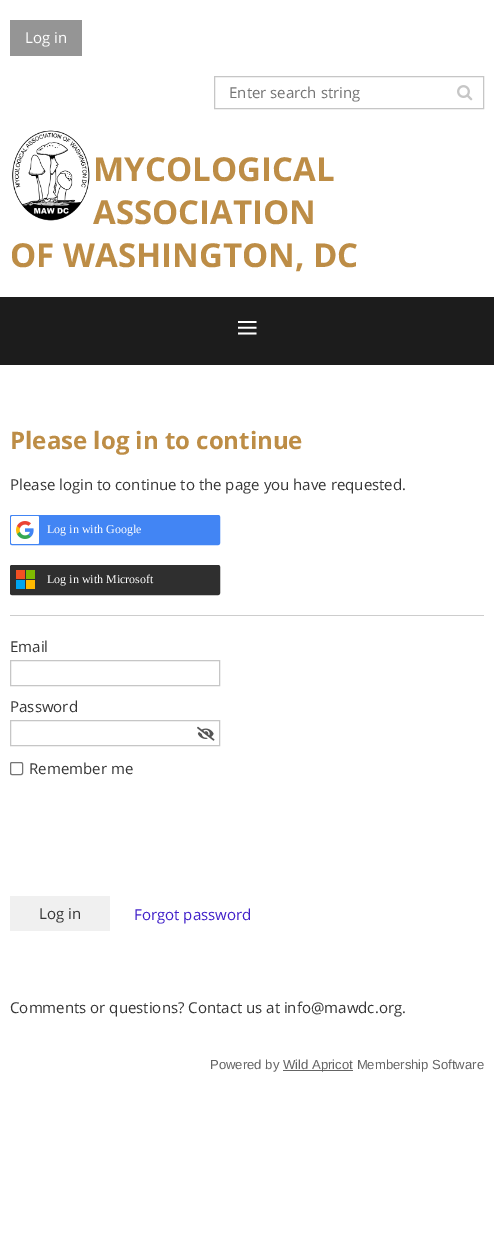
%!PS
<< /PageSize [494 1249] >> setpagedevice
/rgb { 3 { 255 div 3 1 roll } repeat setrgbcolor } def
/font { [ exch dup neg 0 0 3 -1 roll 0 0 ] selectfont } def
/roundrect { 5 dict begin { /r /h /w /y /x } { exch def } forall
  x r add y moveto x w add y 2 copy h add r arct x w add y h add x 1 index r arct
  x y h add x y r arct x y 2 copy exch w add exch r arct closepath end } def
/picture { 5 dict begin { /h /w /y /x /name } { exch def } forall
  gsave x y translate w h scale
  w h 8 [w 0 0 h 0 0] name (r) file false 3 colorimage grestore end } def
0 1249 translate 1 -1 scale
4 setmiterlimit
255 255 255 rgb
0 0 494 1249 rectfill
149 149 149 rgb
10 20 72 36 rectfill
198 198 198 rgb
214.5 76.5 269 32 rectstroke
(img/1.rgb) 457 85 16 16 picture
(img/2.rgb) 12 130 78 91 picture
28 28 28 rgb
0 297 494 68 rectfill
205 205 205 rgb
10 615 474 1 rectfill
66 133 244 rgb
10.5 515.5 209 29 1.5 roundrect gsave fill grestore
stroke
(img/3.rgb) 11 516 28 28 picture
47 47 47 rgb
10.5 565.5 209 29 1.5 roundrect gsave fill grestore
stroke
[
  [16 570 9 9 242 80 34]
  [16 580 9 9 0 164 239]
  [26 570 9 9 127 186 0]
  [26 580 9 9 255 185 0]
] { aload pop rgb rectfill } forall
198 198 198 rgb
10.5 660.5 209 25 rectstroke
10.5 720.5 209 25 rectstroke
(img/4.rgb) 197 726 18 15 picture
118 118 118 rgb
10.5 762.5 12 12 1.5 roundrect stroke
240 240 240 rgb
10 896 100 35 rectfill
100 100 100 rgb
283 1070 70 1 rectfill
/OpenSans-Regular 15 font
255 255 255 rgb
25 43 moveto (Log in) show
117 117 117 rgb
229 98 moveto (Enter search string) show
/OpenSans-Bold 33 font
189 141 70 rgb
[
  [(MYCOLOGICAL) 93 181]
  [(ASSOCIATION) 93 224]
  [(OF WASHINGTON, DC) 10 267]
] { aload pop moveto show } forall
/LiberationSerif-Regular 40 font
255 255 255 rgb
236 341 moveto (≡) show
/OpenSans-Bold 24 font
189 141 70 rgb
10 449 moveto (Please log in to continue) show
/OpenSans-Regular 15 font
55 55 55 rgb
10 490 moveto (Please login to continue to the page you have requested.) show
/LiberationSerif-Regular 12 font
255 255 255 rgb
47 533 moveto (Log in with Google) show
47 583 moveto (Log in with Microsoft) show
/OpenSans-Regular 15 font
55 55 55 rgb
[
  [(Email) 10 652]
  [(Password) 10 712]
  [(Remember me) 29 774]
  [(Log in) 39 919]
] { aload pop moveto show } forall
66 34 202 rgb
134 920 moveto (Forgot password) show
55 55 55 rgb
10 1013 moveto (Comments or questions? Contact us at info@mawdc.org.) show
/LiberationSans-Regular 13.1 font
100 100 100 rgb
210 1069 moveto (Powered by) show
283 1069 moveto (Wild Apricot Membership Software) show
showpage
